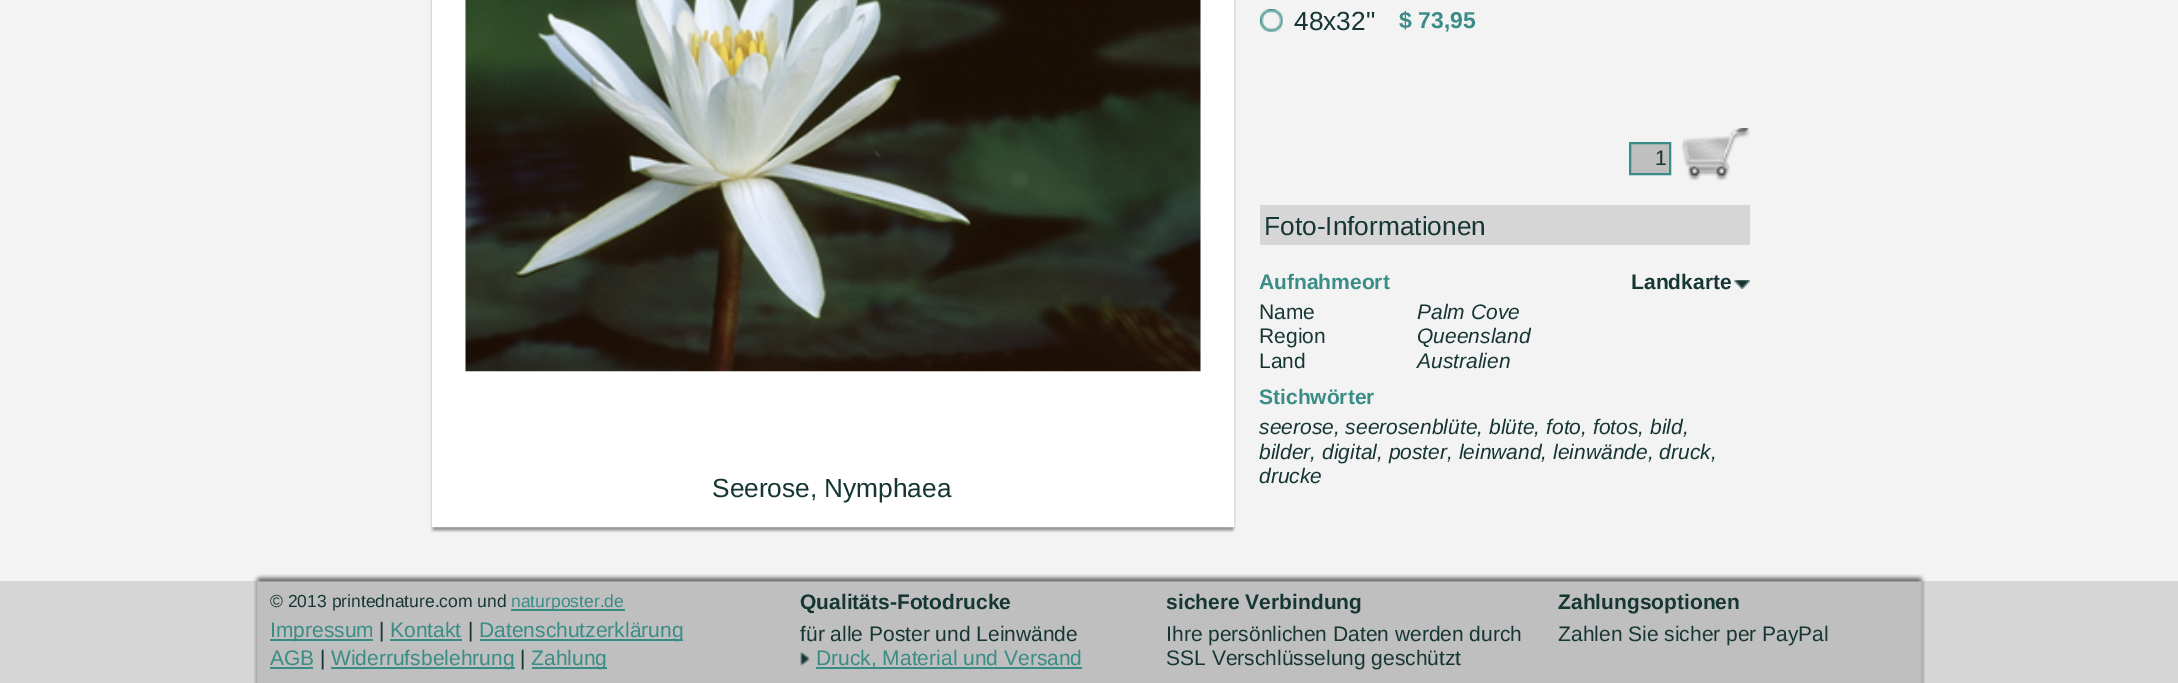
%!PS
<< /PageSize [2178 683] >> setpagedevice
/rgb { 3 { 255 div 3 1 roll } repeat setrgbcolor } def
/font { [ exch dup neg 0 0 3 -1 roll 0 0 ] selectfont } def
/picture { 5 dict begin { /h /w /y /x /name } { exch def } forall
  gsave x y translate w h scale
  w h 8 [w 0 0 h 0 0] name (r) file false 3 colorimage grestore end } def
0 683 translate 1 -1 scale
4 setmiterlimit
243 243 243 rgb
0 0 2178 683 rectfill
(img/1.rgb) 1260 9 23 23 picture
191 191 191 rgb
1630 143 moveto 1670 143 lineto 1670 174 lineto 1630 174 lineto closepath gsave fill grestore
58 140 135 rgb
2 setlinewidth
stroke
(img/2.rgb) 1682 128 68 53 picture
214 214 214 rgb
1260 205 490 40 rectfill
(img/3.rgb) 1734 280 16 9 picture
(img/4.rgb) 430 0 806 533 picture
255 255 255 rgb
432 0 802 527 rectfill
(img/5.rgb) 465 0 736 372 picture
214 214 214 rgb
0 581 2178 102 rectfill
(img/6.rgb) 253 574 1672 109 picture
[
  [511 609 114 2 58 140 135]
  [270 639 103 2 58 140 135]
  [390 639 72 2 58 140 135]
  [480 639 203 2 58 140 135]
  [270 667 43 2 58 140 135]
  [331 667 184 2 58 140 135]
  [532 667 75 2 58 140 135]
] { aload pop rgb rectfill } forall
(img/7.rgb) 800 651 11 15 picture
816 667 266 2 rectfill
/LiberationSans-Regular 26.25 font
22 54 52 rgb
1294 30 moveto (48x32") show
/LiberationSans-Bold 23 font
58 140 135 rgb
1399 28 moveto ($ 73,95) show
/LiberationSans-Regular 21 font
22 54 52 rgb
1655 165 moveto (1) show
/LiberationSans-Regular 26.25 font
1264 235 moveto (Foto-Informationen) show
/LiberationSans-Bold 21 font
58 140 135 rgb
1259 289 moveto (Aufnahmeort) show
22 54 52 rgb
1631 289 moveto (Landkarte) show
/LiberationSans-Regular 21 font
1259 319 moveto (Name) show
/LiberationSans-Italic 21 font
1417 319 moveto (Palm Cove) show
/LiberationSans-Regular 21 font
1259 343 moveto (Region) show
/LiberationSans-Italic 21 font
1417 343 moveto (Queensland) show
/LiberationSans-Regular 21 font
1259 368 moveto (Land) show
/LiberationSans-Italic 21 font
1417 368 moveto (Australien) show
/LiberationSans-Bold 21 font
58 140 135 rgb
1259 404 moveto (Stichwörter) show
/LiberationSans-Italic 21 font
22 54 52 rgb
[
  [(seerose, seerosenblüte, blüte, foto, fotos, bild,) 1259 434]
  [(bilder, digital, poster, leinwand, leinwände, druck,) 1259 459]
  [(drucke) 1259 483]
] { aload pop moveto show } forall
/LiberationSans-Regular 26.25 font
712 497 moveto (Seerose, Nymphaea) show
/LiberationSans-Regular 17.5 font
270 607 moveto (© 2013 printednature.com und) show
58 140 135 rgb
511 607 moveto (naturposter.de) show
/LiberationSans-Regular 21 font
270 637 moveto (Impressum) show
22 54 52 rgb
379 637 moveto (|) show
58 140 135 rgb
390 637 moveto (Kontakt) show
22 54 52 rgb
468 637 moveto (|) show
58 140 135 rgb
479 637 moveto (Datenschutzerklärung) show
270 665 moveto (AGB) show
22 54 52 rgb
320 665 moveto (|) show
58 140 135 rgb
331 665 moveto (Widerrufsbelehrung) show
22 54 52 rgb
520 665 moveto (|) show
58 140 135 rgb
531 665 moveto (Zahlung) show
/LiberationSans-Bold 21 font
22 54 52 rgb
800 609 moveto (Qualitäts-Fotodrucke) show
/LiberationSans-Regular 21 font
800 641 moveto (für alle Poster und Leinwände) show
58 140 135 rgb
816 665 moveto (Druck, Material und Versand) show
/LiberationSans-Bold 21 font
22 54 52 rgb
1166 609 moveto (sichere Verbindung) show
/LiberationSans-Regular 21 font
1166 641 moveto (Ihre persönlichen Daten werden durch) show
1166 665 moveto (SSL Verschlüsselung geschützt) show
/LiberationSans-Bold 21 font
1558 609 moveto (Zahlungsoptionen) show
/LiberationSans-Regular 21 font
1558 641 moveto (Zahlen Sie sicher per PayPal) show
showpage
